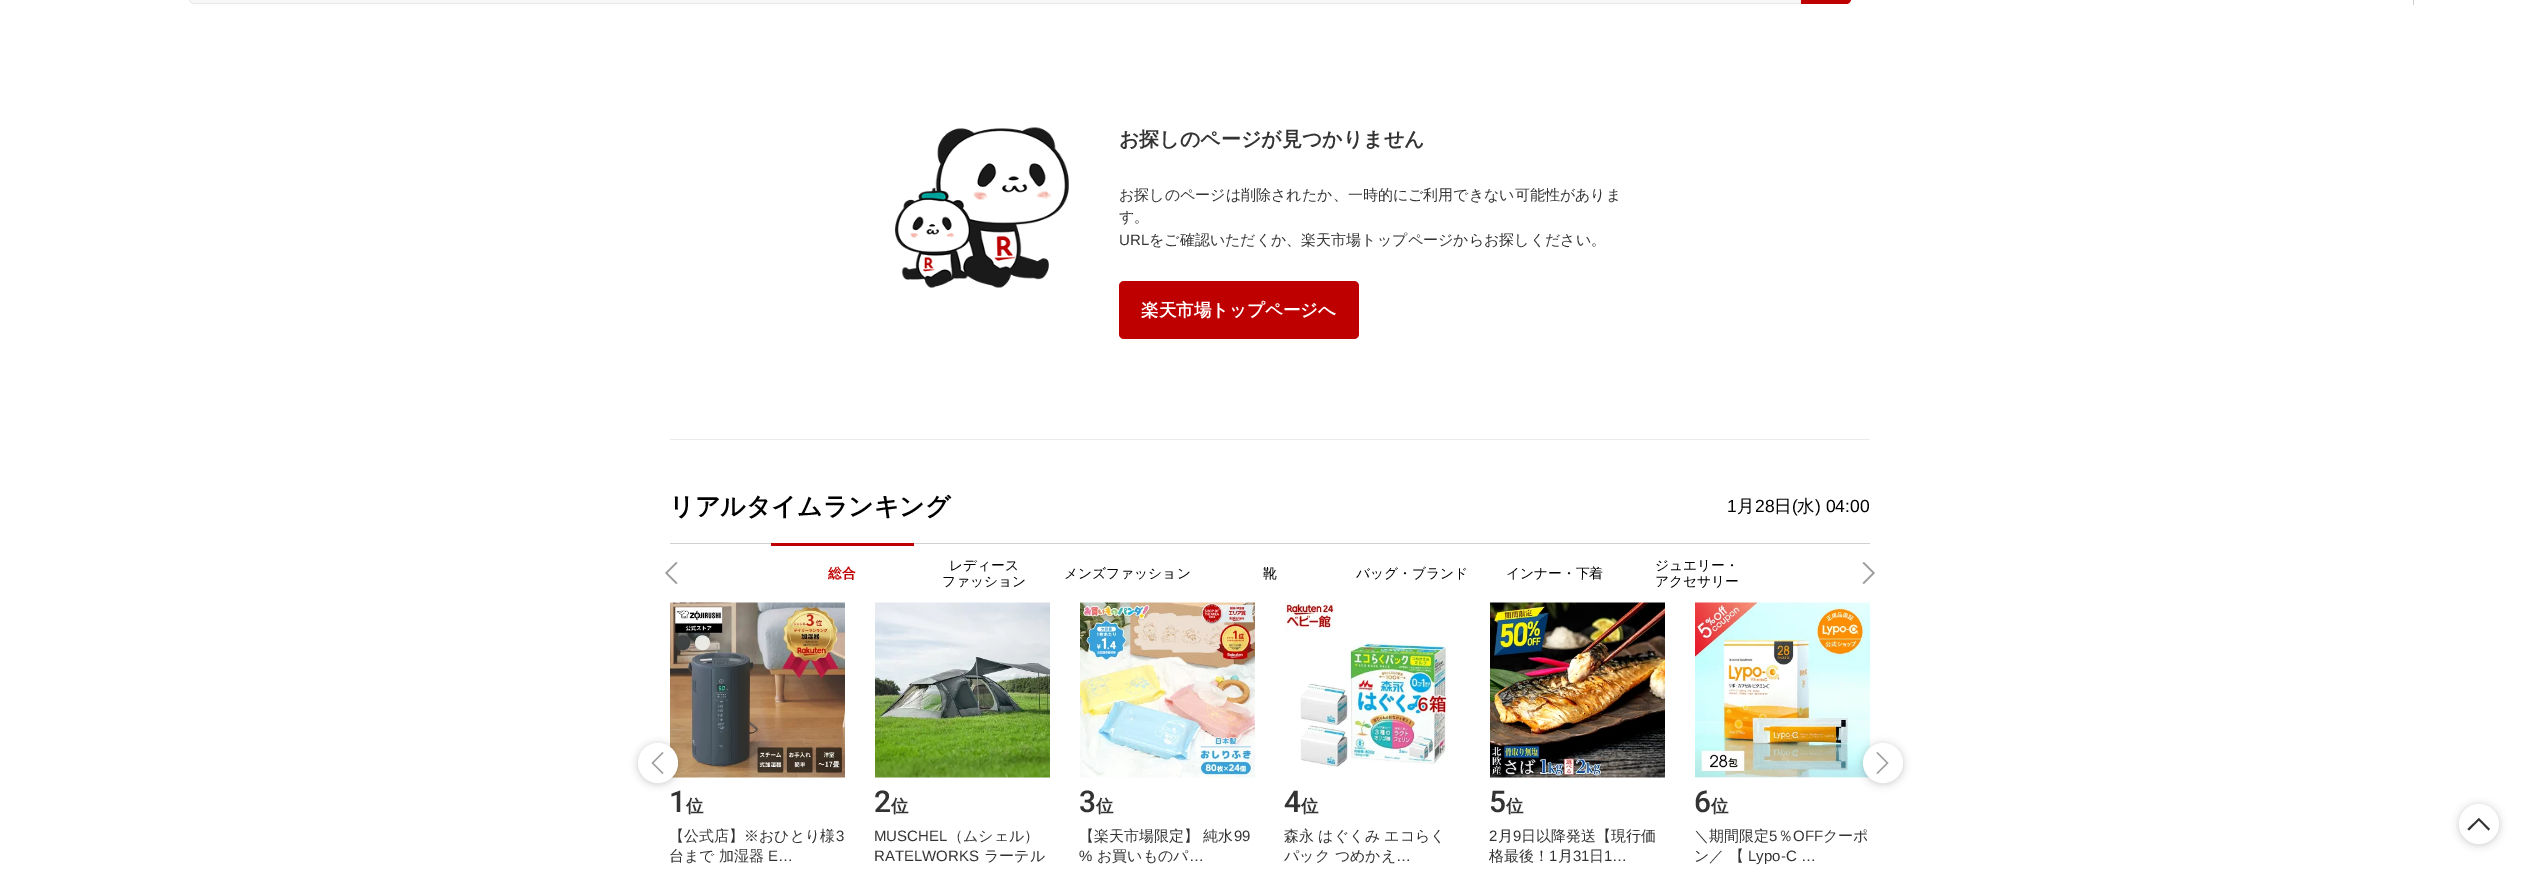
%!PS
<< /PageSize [2538 883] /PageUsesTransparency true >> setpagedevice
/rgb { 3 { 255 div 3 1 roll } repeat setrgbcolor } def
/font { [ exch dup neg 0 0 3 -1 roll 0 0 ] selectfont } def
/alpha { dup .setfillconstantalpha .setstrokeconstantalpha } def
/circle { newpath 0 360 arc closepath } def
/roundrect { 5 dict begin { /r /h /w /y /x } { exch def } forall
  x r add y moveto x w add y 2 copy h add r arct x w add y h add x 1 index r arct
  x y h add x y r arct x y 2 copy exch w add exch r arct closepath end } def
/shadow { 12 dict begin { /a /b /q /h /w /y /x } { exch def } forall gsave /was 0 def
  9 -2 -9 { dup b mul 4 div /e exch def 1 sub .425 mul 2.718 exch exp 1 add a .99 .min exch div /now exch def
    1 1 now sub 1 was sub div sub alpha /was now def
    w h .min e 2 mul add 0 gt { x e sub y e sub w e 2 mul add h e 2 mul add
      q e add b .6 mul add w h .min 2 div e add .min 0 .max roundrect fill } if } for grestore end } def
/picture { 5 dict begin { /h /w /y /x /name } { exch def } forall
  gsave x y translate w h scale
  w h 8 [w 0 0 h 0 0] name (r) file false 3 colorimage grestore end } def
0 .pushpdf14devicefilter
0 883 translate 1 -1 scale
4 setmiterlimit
255 255 255 rgb
0 0 2538 883 rectfill
247 247 247 rgb
194 -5.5 moveto 1800.5 -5.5 lineto 1800.5 3.5 lineto 194 3.5 lineto 191.5 3.5 189.5 1.5 189.5 -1 curveto 189.5 -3.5 191.5 -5.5 194 -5.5 curveto closepath gsave fill grestore
235 235 235 rgb
stroke
191 0 0 rgb
1801 -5 moveto 1846 -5 lineto 1849 -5 1851 -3 1851 0 curveto 1851 -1 lineto 1851 2 1849 4 1846 4 curveto 1801 4 lineto closepath fill
204 204 204 rgb
2413 0 1 5 rectfill
(img/1.rgb) 895 127 174 161 picture
191 0 0 rgb
1119 281 240 58 5 roundrect fill
235 235 235 rgb
670 439 1200 1 rectfill
209 209 209 rgb
670 543 1200 1 rectfill
156 156 156 rgb
676 584 moveto 677.5 583 lineto 667.5 573 lineto 677.5 563 lineto 676 562 lineto 665 573 lineto closepath fill
191 0 0 rgb
771 543 143 3 rectfill
156 156 156 rgb
1864 562 moveto 1862.5 563 lineto 1872.5 573 lineto 1862.5 583 lineto 1864 584 lineto 1875 573 lineto closepath fill
(img/2.rgb) 670 602 175 176 picture
0 0 0 rgb
638 744 40 40 20 4 0.2 shadow
255 255 255 rgb
658 763 20 circle fill
156 156 156 rgb
662.5 774 moveto 663.5 773 lineto 653.5 763 lineto 663.5 753 lineto 662.5 752 lineto 651.5 763 lineto closepath fill
(img/7.rgb) 1695 602 175 176 picture
0 0 0 rgb
1863 744 40 40 20 4 0.2 shadow
255 255 255 rgb
1883 763 20 circle fill
156 156 156 rgb
1877.5 752 moveto 1876.5 753 lineto 1886.5 763 lineto 1876.5 773 lineto 1877.5 774 lineto 1888.5 763 lineto closepath fill
(img/3.rgb) 875 602 175 176 picture
(img/4.rgb) 1080 602 175 176 picture
(img/5.rgb) 1285 602 163 165 picture
(img/6.rgb) 1490 602 175 176 picture
0 0 0 rgb
2459 805 40 40 20 4 0.2 shadow
255 255 255 rgb
2479 824 20 circle fill
51 51 51 rgb
2467.5 829 moveto 2469 830.5 lineto 2479 820.5 lineto 2488.5 830.5 lineto 2490 829 lineto 2479 818 lineto closepath fill
/WenQuanYiZenHei-Bold 20 font
1119 146 moveto (お探しのページが見つかりません) show
/WenQuanYiZenHei-Medium 15 font
1119 200 moveto (お探しのページは削除されたか、一時的にご利用できない可能性がありま) show
1119 222 moveto (す。) show
/LiberationSans-Regular 15 font
1119 245 moveto (URL) show
/WenQuanYiZenHei-Medium 15 font
1149 245 moveto (をご確認いただくか、楽天市場トップページからお探しください。) show
/WenQuanYiZenHei-Bold 17.5 font
255 255 255 rgb
1141 316 moveto (楽天市場トップページへ) show
/WenQuanYiZenHei-Bold 25 font
0 0 0 rgb
669 515 moveto (リアルタイムランキング) show
/LiberationSans-Regular 17.5 font
1727 512 moveto (1) show
/WenQuanYiZenHei-Medium 17.5 font
1737 512 moveto (月) show
/LiberationSans-Regular 17.5 font
1755 512 moveto (28) show
/WenQuanYiZenHei-Medium 17.5 font
1774 512 moveto (日) show
/LiberationSans-Regular 17.5 font
1792 512 moveto (\() show
/WenQuanYiZenHei-Medium 17.5 font
1797 512 moveto (水) show
/LiberationSans-Regular 17.5 font
1815 512 moveto (\) 04:00) show
/WenQuanYiZenHei-Bold 13.75 font
191 0 0 rgb
828 578 moveto (総合) show
/WenQuanYiZenHei-Medium 13.75 font
0 0 0 rgb
[
  [(レディース) 949 570]
  [(ファッション) 942 586]
  [(メンズファッション) 1064 578]
  [(靴) 1263 578]
  [(バッグ・ブランド) 1356 578]
  [(インナー・下着) 1506 578]
  [(ジュエリー・) 1655 570]
  [(アクセサリー) 1655 586]
] { aload pop moveto show } forall
/Roboto-Medium 30 font
51 51 51 rgb
669 812 moveto (1) show
/WenQuanYiZenHei-Bold 17.5 font
686 812 moveto (位) show
/WenQuanYiZenHei-Medium 15 font
669 841 moveto (【公式店】※おひとり様) show
/LiberationSans-Regular 15 font
836 841 moveto (3) show
/WenQuanYiZenHei-Medium 15 font
669 861 moveto (台まで 加湿器) show
/LiberationSans-Regular 15 font
768 861 moveto (E…) show
/Roboto-Medium 30 font
874 812 moveto (2) show
/WenQuanYiZenHei-Bold 17.5 font
891 812 moveto (位) show
/LiberationSans-Regular 15 font
874 841 moveto (MUSCHEL) show
/WenQuanYiZenHei-Medium 15 font
948 841 moveto (（ムシェル）) show
/LiberationSans-Regular 15 font
874 861 moveto (RATELWORKS) show
/WenQuanYiZenHei-Medium 15 font
984 861 moveto (ラーテル) show
/Roboto-Medium 30 font
1079 812 moveto (3) show
/WenQuanYiZenHei-Bold 17.5 font
1096 812 moveto (位) show
/WenQuanYiZenHei-Medium 15 font
1079 841 moveto (【楽天市場限定】 純水) show
/LiberationSans-Regular 15 font
1234 841 moveto (99) show
1079 861 moveto (%) show
/WenQuanYiZenHei-Medium 15 font
1097 861 moveto (お買いものパ) show
/LiberationSans-Regular 15 font
1189 861 moveto (…) show
/Roboto-Medium 30 font
1284 812 moveto (4) show
/WenQuanYiZenHei-Bold 17.5 font
1301 812 moveto (位) show
/WenQuanYiZenHei-Medium 15 font
1284 841 moveto (森永 はぐくみ エコらく) show
1284 861 moveto (パック つめかえ) show
/LiberationSans-Regular 15 font
1396 861 moveto (…) show
/Roboto-Medium 30 font
1489 812 moveto (5) show
/WenQuanYiZenHei-Bold 17.5 font
1506 812 moveto (位) show
/LiberationSans-Regular 15 font
1489 841 moveto (2) show
/WenQuanYiZenHei-Medium 15 font
1498 841 moveto (月) show
/LiberationSans-Regular 15 font
1513 841 moveto (9) show
/WenQuanYiZenHei-Medium 15 font
1521 841 moveto (日以降発送【現行価) show
1489 861 moveto (格最後！) show
/LiberationSans-Regular 15 font
1549 861 moveto (1) show
/WenQuanYiZenHei-Medium 15 font
1558 861 moveto (月) show
/LiberationSans-Regular 15 font
1573 861 moveto (31) show
/WenQuanYiZenHei-Medium 15 font
1589 861 moveto (日) show
/LiberationSans-Regular 15 font
1604 861 moveto (1…) show
/Roboto-Medium 30 font
1694 812 moveto (6) show
/WenQuanYiZenHei-Bold 17.5 font
1711 812 moveto (位) show
/WenQuanYiZenHei-Medium 15 font
1694 841 moveto (＼期間限定) show
/LiberationSans-Regular 15 font
1769 841 moveto (5) show
/WenQuanYiZenHei-Medium 15 font
1778 841 moveto (％) show
/LiberationSans-Regular 15 font
1793 841 moveto (OFF) show
/WenQuanYiZenHei-Medium 15 font
[
  [(クーポ) 1823 841]
  [(ン／) 1694 861]
  [(【) 1729 861]
] { aload pop moveto show } forall
/LiberationSans-Regular 15 font
1748 861 moveto (Lypo-C …) show
.poppdf14devicefilter showpage
